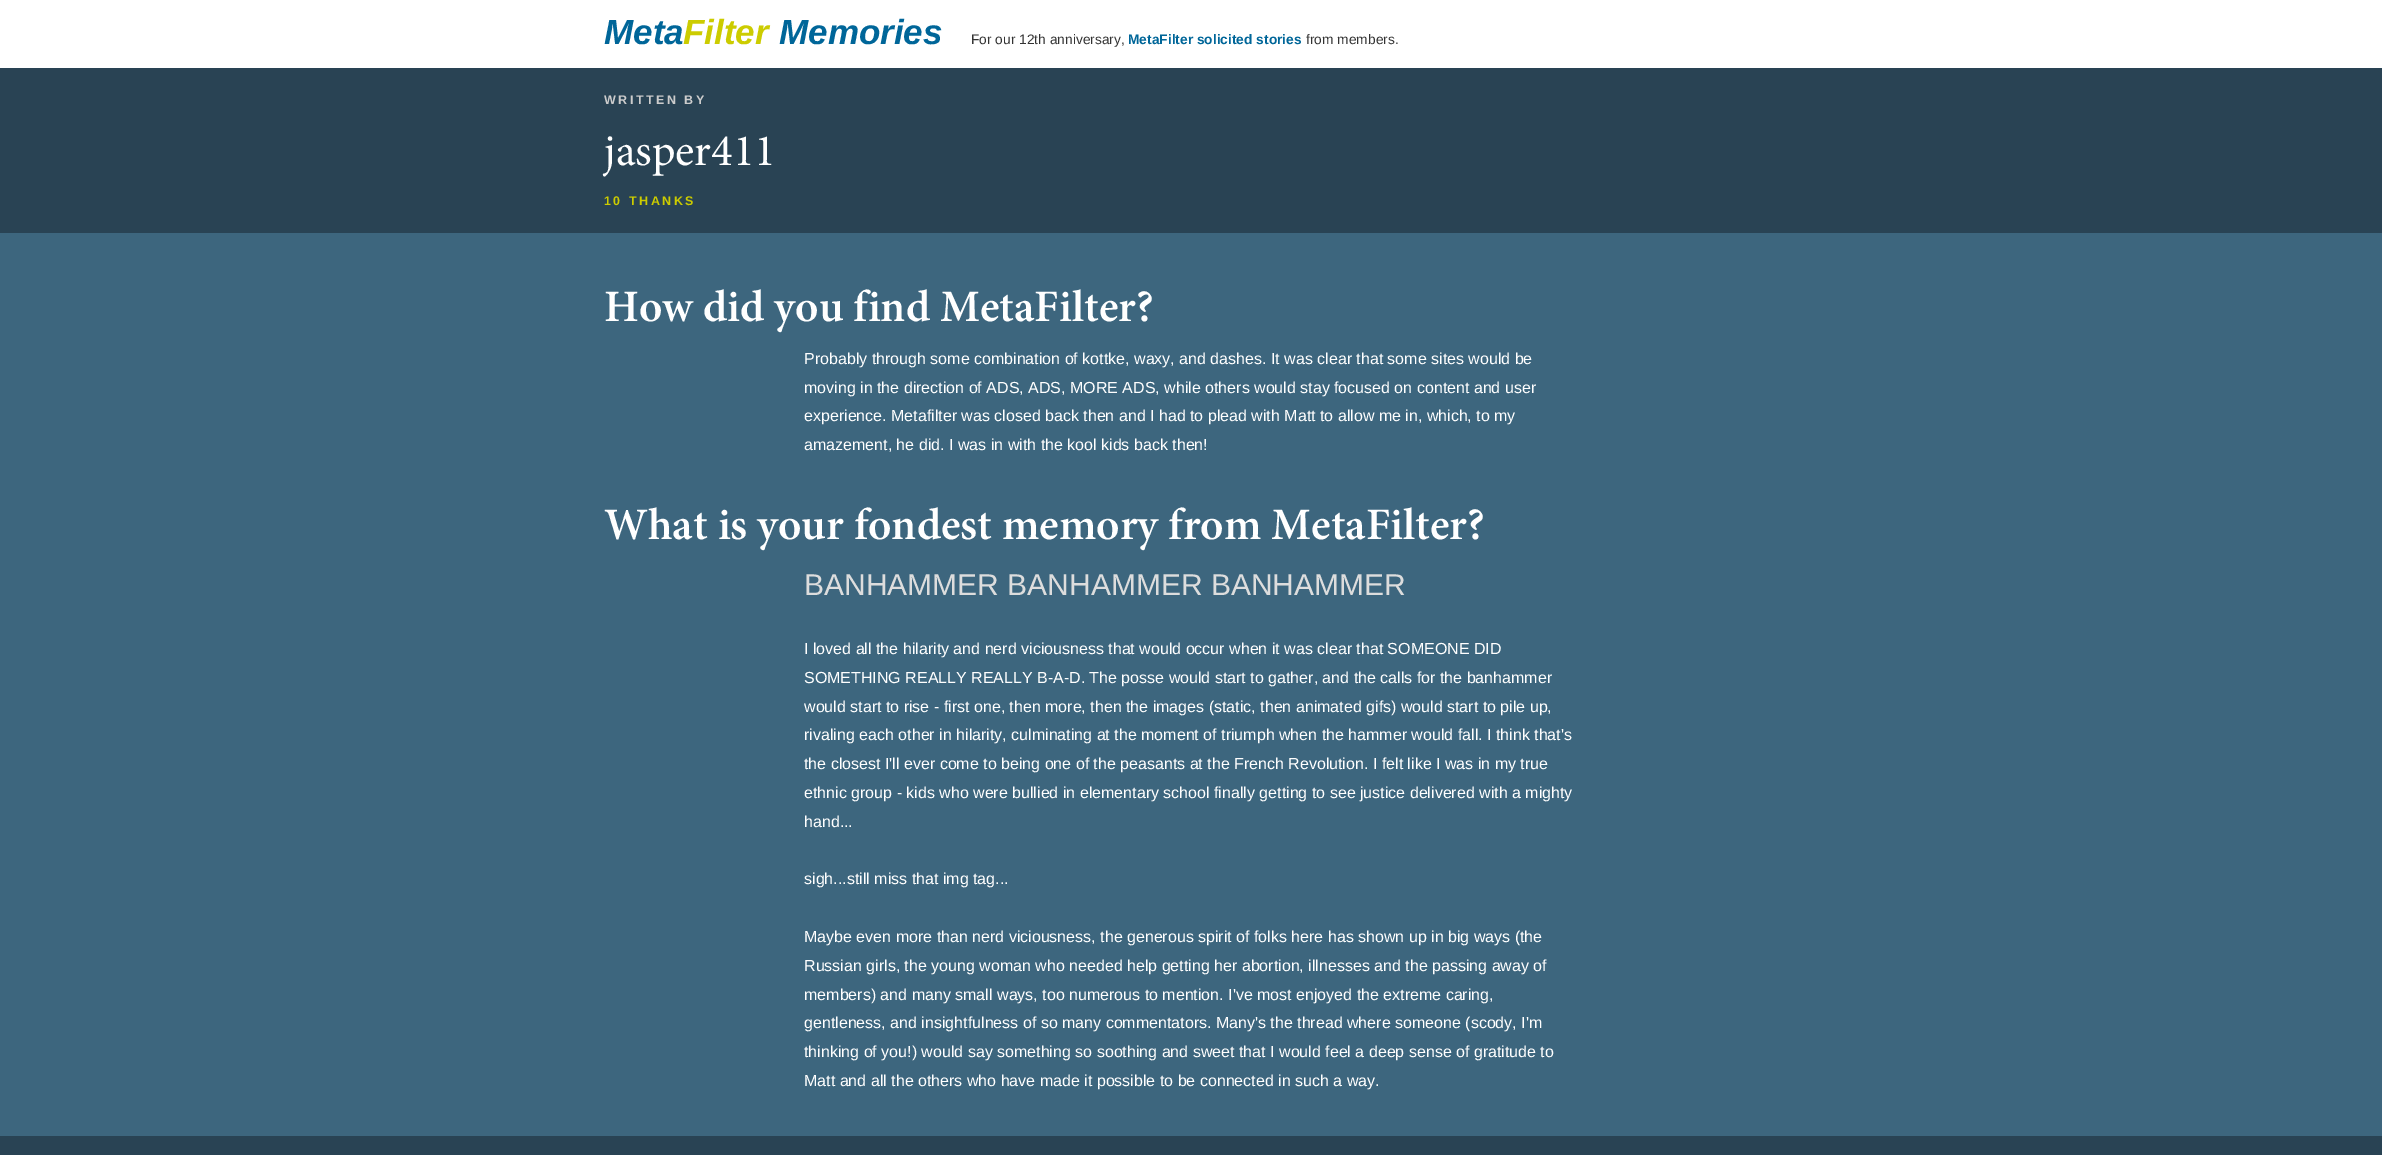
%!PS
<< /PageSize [2382 1155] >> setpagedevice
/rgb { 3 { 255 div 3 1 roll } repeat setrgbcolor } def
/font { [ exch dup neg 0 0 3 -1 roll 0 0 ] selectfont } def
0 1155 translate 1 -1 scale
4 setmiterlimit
41 67 84 rgb
0 0 2382 1155 rectfill
255 255 255 rgb
0 0 2382 68 rectfill
61 102 126 rgb
0 233 2382 903 rectfill
/LiberationSans-BoldItalic 35 font
0 102 153 rgb
604 44 moveto (Meta) show
204 204 0 rgb
683 44 moveto (Filter) show
0 102 153 rgb
779 44 moveto (Memories) show
/LiberationSans-Regular 13.75 font
51 51 51 rgb
971 44 moveto (For our 12th anniversary,) show
/LiberationSans-Bold 13.75 font
0 102 153 rgb
1128 44 moveto (MetaFilter solicited stories) show
/LiberationSans-Regular 13.75 font
51 51 51 rgb
1306 44 moveto (from members.) show
/LiberationSans-Bold 12.5 font
204 204 204 rgb
604 104 moveto 2.5 0 (WRITTEN BY) ashow
/Minion-Regular 45 font
255 255 255 rgb
604 165 moveto (jasper411) show
/LiberationSans-Bold 12.5 font
204 204 0 rgb
604 205 moveto 2.5 0 (10 THANKS) ashow
/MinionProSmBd-SemiBold 45 font
255 255 255 rgb
604 321 moveto (How did you find MetaFilter?) show
/LiberationSans-Regular 16 font
[
  [(Probably through some combination of kottke, waxy, and dashes. It was clear that some sites would be) 804 364]
  [(moving in the direction of ADS, ADS, MORE ADS, while others would stay focused on content and user) 804 393]
  [(experience. Metafilter was closed back then and I had to plead with Matt to allow me in, which, to my) 804 421]
  [(amazement, he did. I was in with the kool kids back then!) 804 450]
] { aload pop moveto show } forall
/MinionProSmBd-SemiBold 45 font
604 539 moveto (What is your fondest memory from MetaFilter?) show
/LiberationSans-Regular 30 font
221 221 221 rgb
804 595 moveto (BANHAMMER BANHAMMER BANHAMMER) show
/LiberationSans-Regular 16 font
255 255 255 rgb
[
  [(I loved all the hilarity and nerd viciousness that would occur when it was clear that SOMEONE DID) 804 654]
  [(SOMETHING REALLY REALLY B-A-D. The posse would start to gather, and the calls for the banhammer) 804 683]
  [(would start to rise - first one, then more, then the images \(static, then animated gifs\) would start to pile up,) 804 712]
  [(rivaling each other in hilarity, culminating at the moment of triumph when the hammer would fall. I think that's) 804 740]
  [(the closest I'll ever come to being one of the peasants at the French Revolution. I felt like I was in my true) 804 769]
  [(ethnic group - kids who were bullied in elementary school finally getting to see justice delivered with a mighty) 804 798]
  [(hand...) 804 827]
  [(sigh...still miss that img tag...) 804 884]
  [(Maybe even more than nerd viciousness, the generous spirit of folks here has shown up in big ways \(the) 804 942]
  [(Russian girls, the young woman who needed help getting her abortion, illnesses and the passing away of) 804 971]
  [(members\) and many small ways, too numerous to mention. I've most enjoyed the extreme caring,) 804 1000]
  [(gentleness, and insightfulness of so many commentators. Many's the thread where someone \(scody, I'm) 804 1028]
  [(thinking of you!\) would say something so soothing and sweet that I would feel a deep sense of gratitude to) 804 1057]
  [(Matt and all the others who have made it possible to be connected in such a way.) 804 1086]
] { aload pop moveto show } forall
showpage
